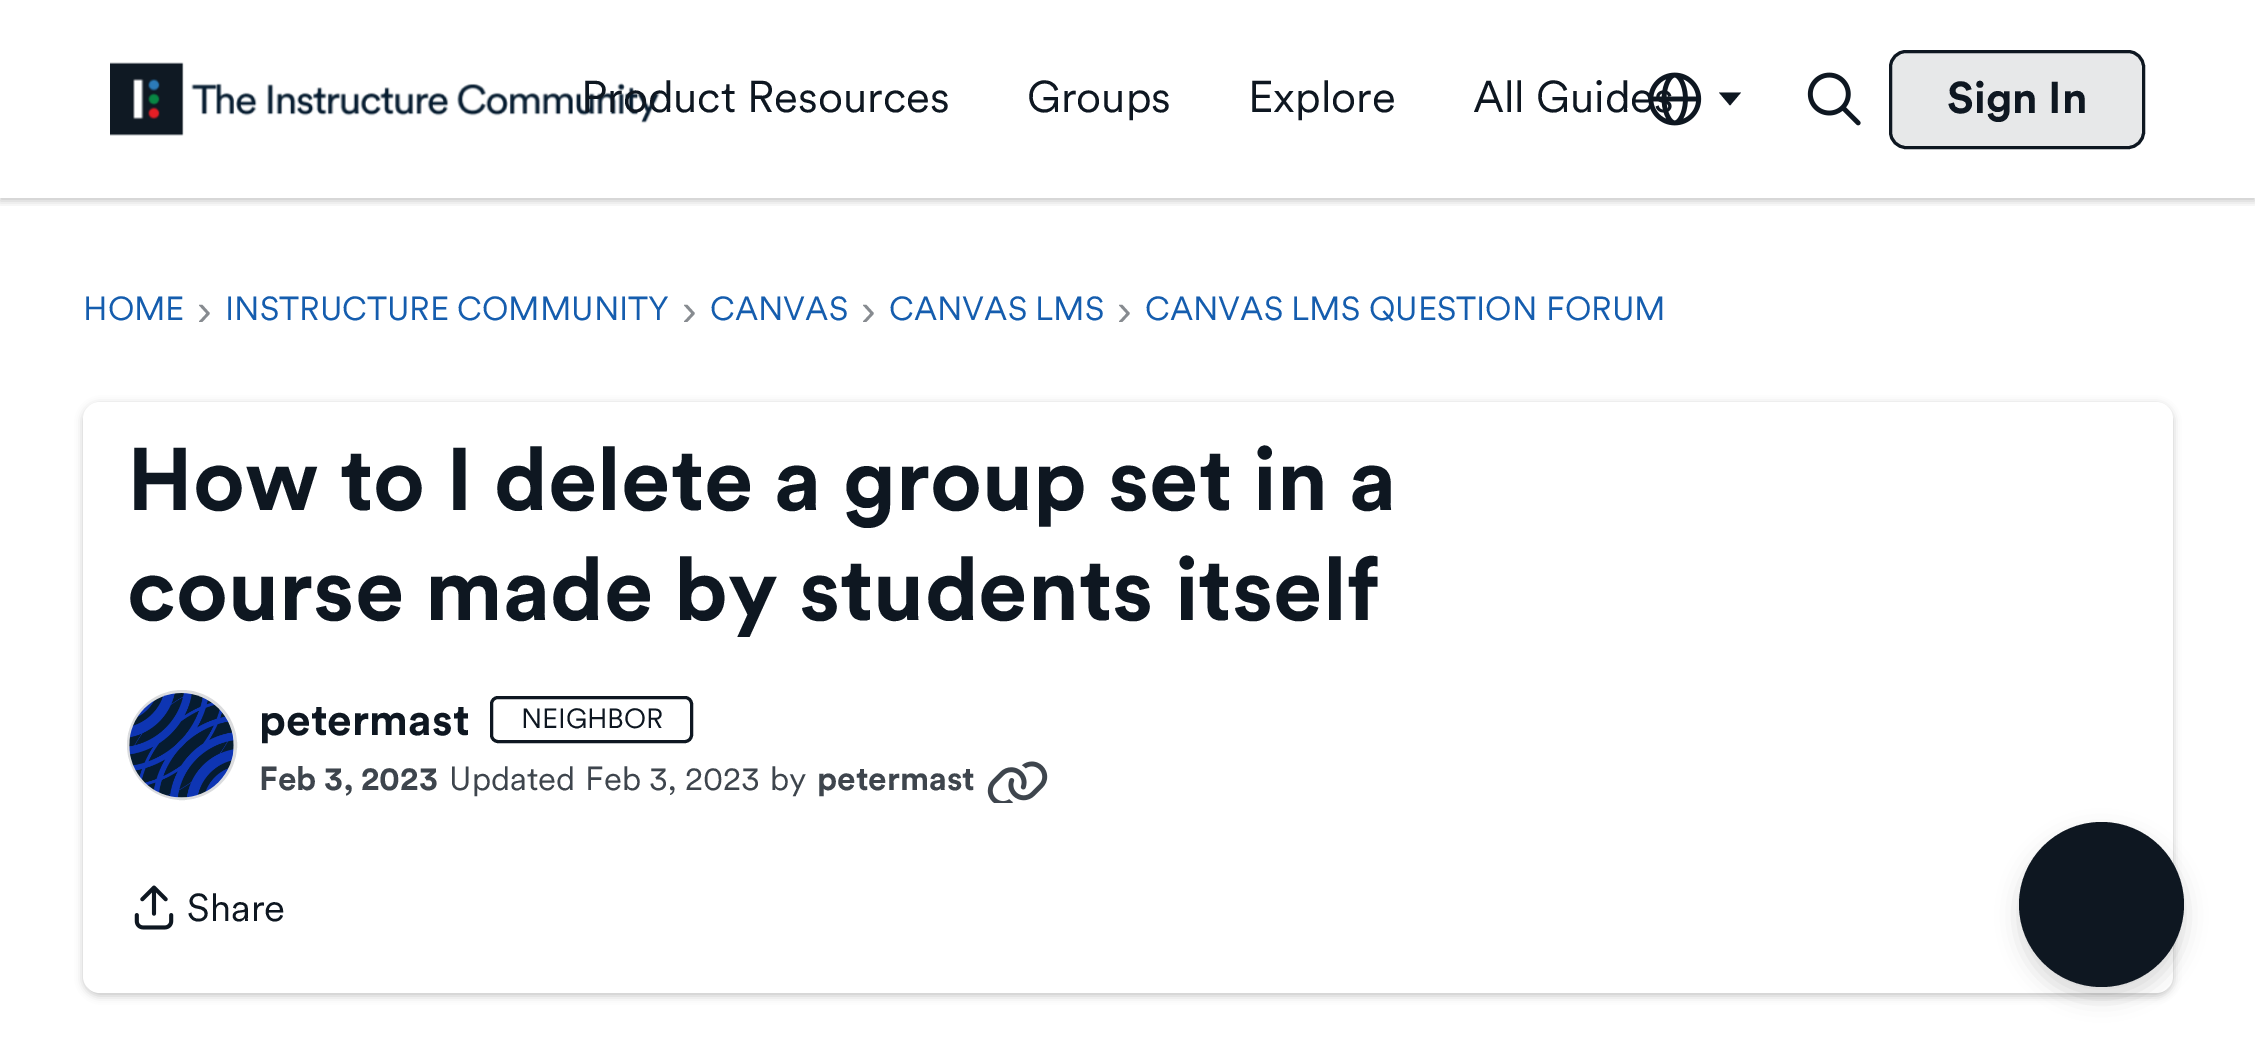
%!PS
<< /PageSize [2255 1041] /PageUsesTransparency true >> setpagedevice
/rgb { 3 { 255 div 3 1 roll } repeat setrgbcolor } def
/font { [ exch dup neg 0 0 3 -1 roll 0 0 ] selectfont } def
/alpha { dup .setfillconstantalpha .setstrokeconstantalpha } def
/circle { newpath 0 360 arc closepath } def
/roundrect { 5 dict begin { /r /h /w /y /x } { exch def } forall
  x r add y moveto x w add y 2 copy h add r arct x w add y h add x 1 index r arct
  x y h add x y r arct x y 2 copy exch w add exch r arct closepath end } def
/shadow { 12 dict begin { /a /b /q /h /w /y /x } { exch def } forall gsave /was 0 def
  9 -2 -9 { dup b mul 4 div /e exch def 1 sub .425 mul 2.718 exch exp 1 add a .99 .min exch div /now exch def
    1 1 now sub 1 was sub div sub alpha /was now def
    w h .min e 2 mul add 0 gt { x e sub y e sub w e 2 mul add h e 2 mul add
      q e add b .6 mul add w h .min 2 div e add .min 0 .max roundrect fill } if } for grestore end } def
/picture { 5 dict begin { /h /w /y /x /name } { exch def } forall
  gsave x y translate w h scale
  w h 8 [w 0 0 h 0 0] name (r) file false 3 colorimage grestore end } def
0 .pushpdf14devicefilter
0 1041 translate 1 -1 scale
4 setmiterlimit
255 255 255 rgb
0 0 2255 1041 rectfill
gsave
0 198 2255 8 rectclip
0 0 0 rgb
0 3 2255 198 0 4 0.22 shadow
grestore
(img/1.rgb) 110 62 550 74 picture
14 23 33 rgb
1719 92.5 moveto 1741 92.5 lineto 1730 105.5 lineto closepath fill
(img/3.rgb) 1807 72 54 54 picture
231 232 233 rgb
1890.5 51.5 253 96 15.5 roundrect gsave fill grestore
14 23 33 rgb
3 setlinewidth
stroke
0 0 0 rgb
83 404 2090 592 17 4 0.22 shadow
255 255 255 rgb
83 402 2090 591 17 roundrect fill
219 220 222 rgb
182 745 53.5 circle stroke
(img/4.rgb) 129 693 105 105 picture
14 23 33 rgb
491.5 697.5 200 44 6.5 roundrect stroke
(img/5.rgb) 987 761 61 42 picture
(img/6.rgb) 134 885 40 45 picture
0 0 0 rgb
2019 833 165 165 82.5 11 0.15 shadow
14 23 33 rgb
2101.5 904.5 82.5 circle fill
/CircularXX-Regular 44 font
[
  [(Product Resources) 581 112]
  [(Groups) 1027 112]
  [(Explore) 1248 112]
  [(All Guides) 1473 112]
] { aload pop moveto show } forall
(img/2.rgb) 1648 72 54 54 picture
/CircularXX-Bold 44 font
1947 113 moveto (Sign In) show
/CircularXX-Regular 33 font
21 93 174 rgb
83 320 moveto (HOME) show
/LiberationSans-Regular 44 font
135 139 144 rgb
197 325 moveto (›) show
/CircularXX-Regular 33 font
21 93 174 rgb
225 320 moveto (INSTRUCTURE COMMUNITY) show
/LiberationSans-Regular 44 font
135 139 144 rgb
682 325 moveto (›) show
/CircularXX-Regular 33 font
21 93 174 rgb
710 320 moveto (CANVAS) show
/LiberationSans-Regular 44 font
135 139 144 rgb
861 325 moveto (›) show
/CircularXX-Regular 33 font
21 93 174 rgb
889 320 moveto (CANVAS LMS) show
/LiberationSans-Regular 44 font
135 139 144 rgb
1117 325 moveto (›) show
/CircularXX-Regular 33 font
21 93 174 rgb
1145 320 moveto (CANVAS LMS QUESTION FORUM) show
/CircularXX-Bold 88 font
14 23 33 rgb
127 510 moveto (How to I delete a group set in a) show
127 620 moveto (course made by students itself) show
/CircularXX-Bold 44 font
259 735 moveto (petermast) show
/CircularXX-Regular 27.5 font
521 728 moveto (NEIGHBOR) show
/CircularXX-Bold 33 font
62 69 77 rgb
259 790 moveto (Feb 3, 2023) show
/CircularXX-Regular 33 font
[
  [(Updated) 449 790]
  [(Feb 3, 2023) 585 790]
  [(by) 770 790]
] { aload pop moveto show } forall
/CircularXX-Bold 33 font
817 790 moveto (petermast) show
/CircularXX-Regular 38.5 font
14 23 33 rgb
187 921 moveto (Share) show
.poppdf14devicefilter showpage
